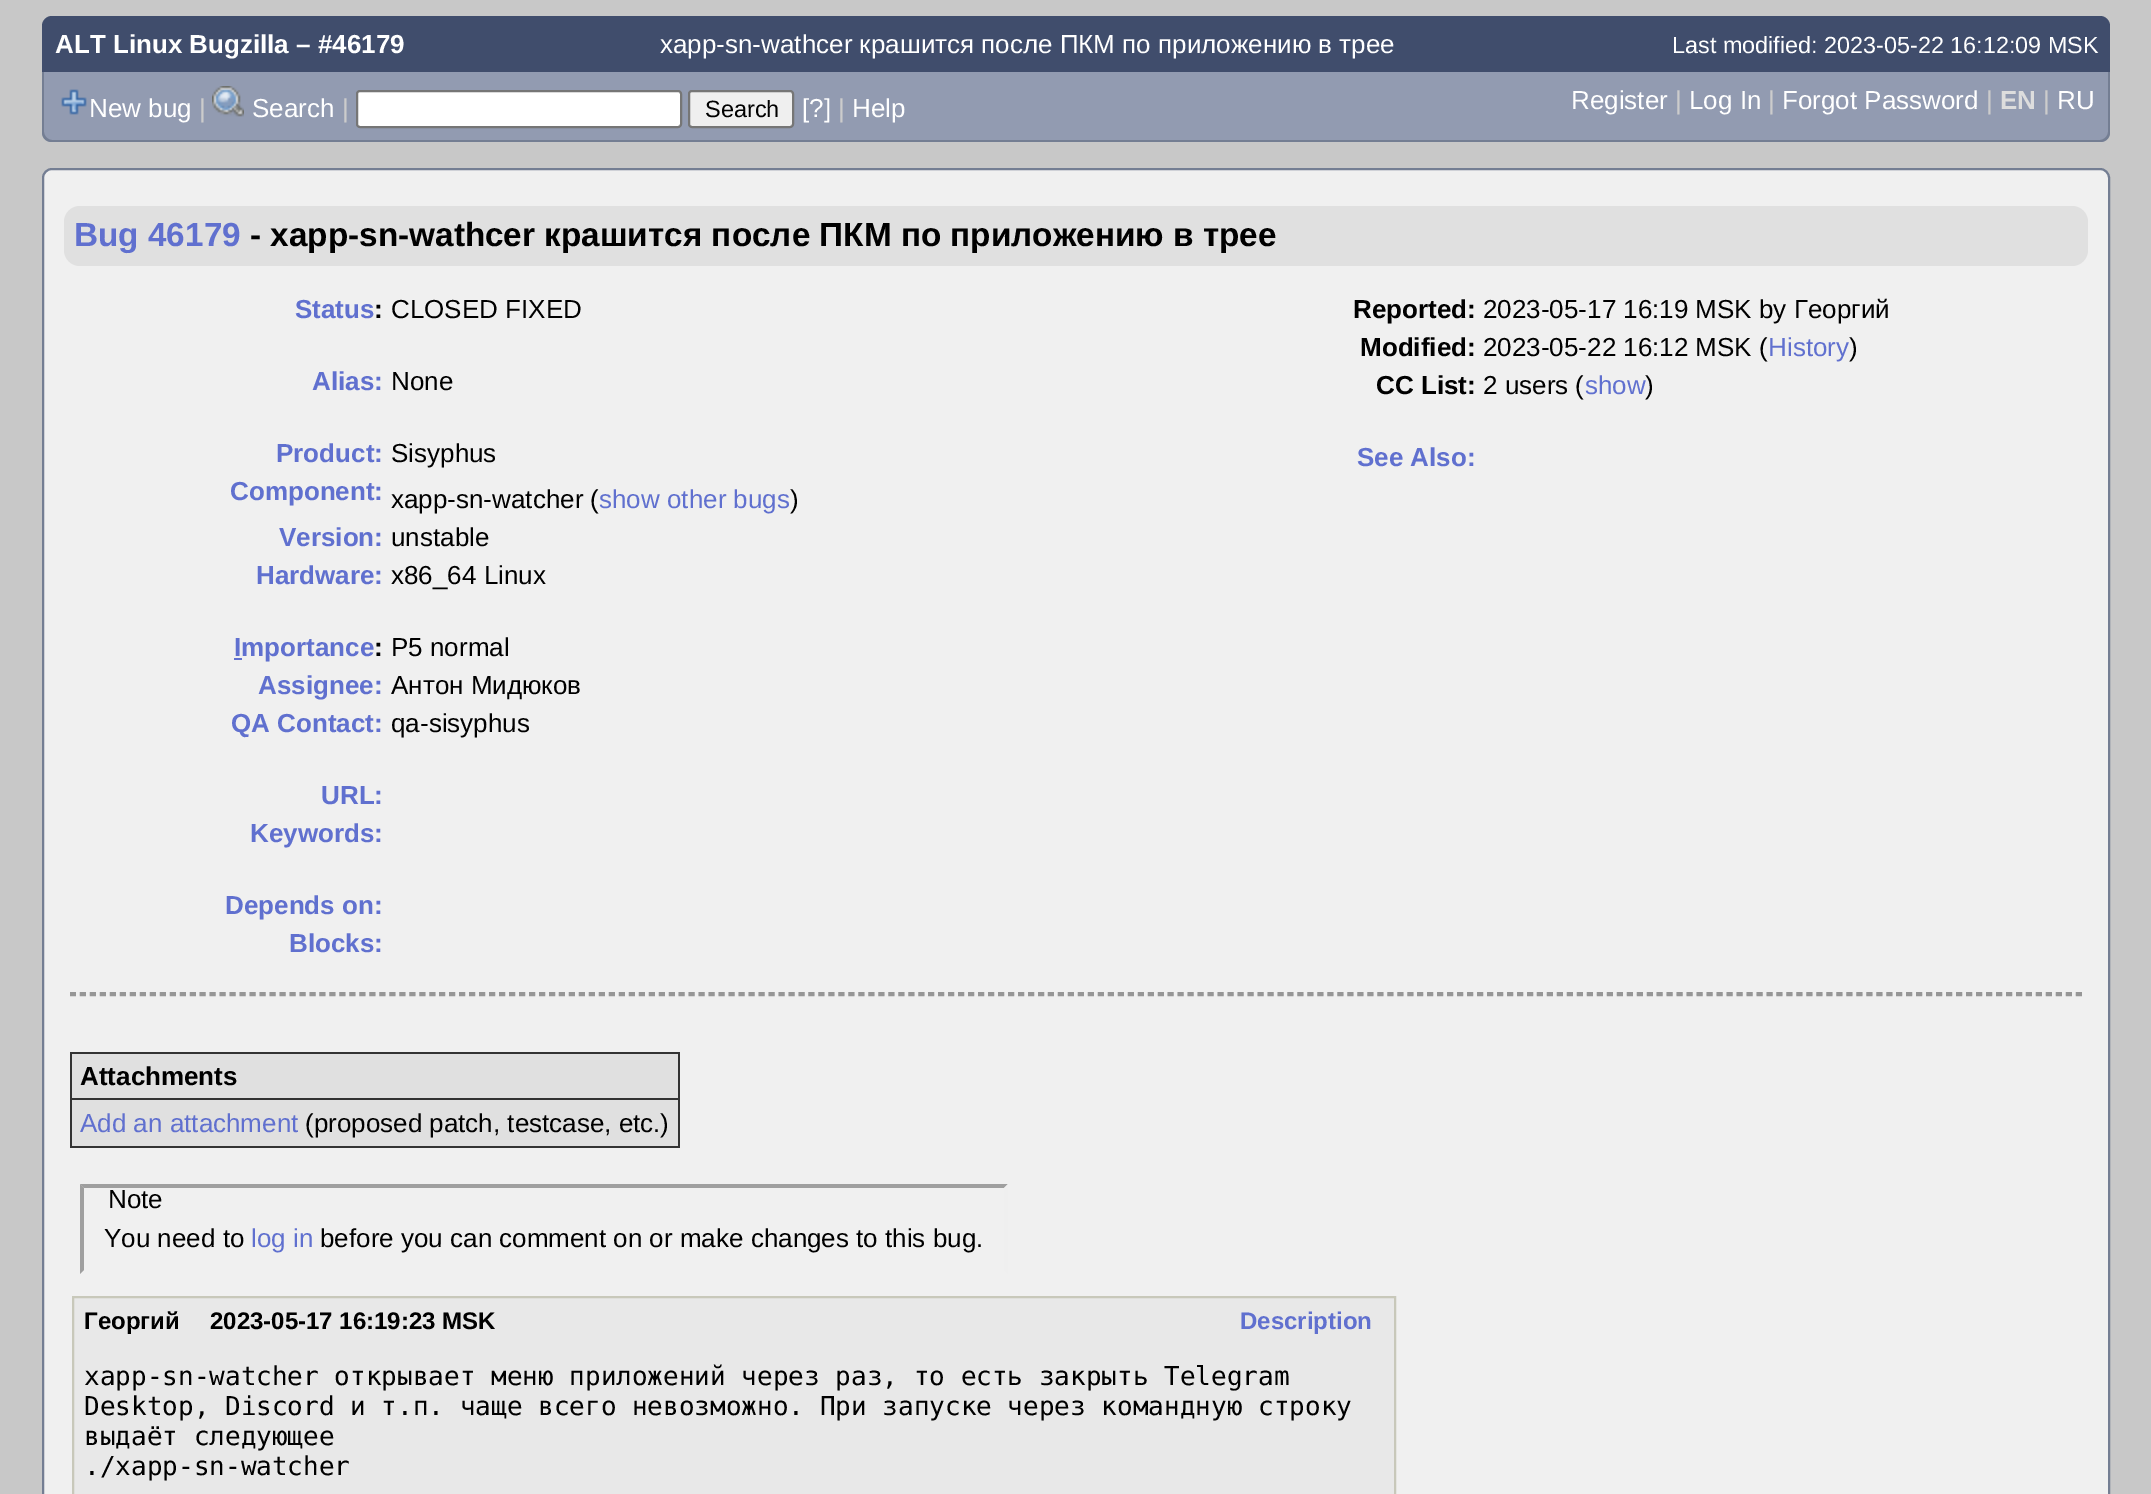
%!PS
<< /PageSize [2151 1494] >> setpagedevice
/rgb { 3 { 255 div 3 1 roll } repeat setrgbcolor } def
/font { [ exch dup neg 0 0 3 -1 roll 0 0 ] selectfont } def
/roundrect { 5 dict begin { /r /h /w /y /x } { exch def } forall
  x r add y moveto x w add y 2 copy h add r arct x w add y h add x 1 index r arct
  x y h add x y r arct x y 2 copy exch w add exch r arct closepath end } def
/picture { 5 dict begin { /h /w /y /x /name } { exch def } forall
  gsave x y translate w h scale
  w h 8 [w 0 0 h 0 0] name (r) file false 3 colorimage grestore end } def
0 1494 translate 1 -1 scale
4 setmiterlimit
200 200 200 rgb
0 0 2151 1494 rectfill
64 77 108 rgb
52 16 moveto 2100 16 lineto 2105.5 16 2110 20.5 2110 26 curveto 2110 72 lineto 42 72 lineto 42 26 lineto 42 20.5 46.5 16 52 16 curveto closepath fill
146 155 177 rgb
42 72 moveto 2110 72 lineto 2110 132 lineto 2110 137.5 2105.5 142 2100 142 curveto 52 142 lineto 46.5 142 42 137.5 42 132 curveto closepath fill
116 126 147 rgb
42 72 moveto 2110 72 lineto 2110 132 lineto 2110 138 2106 142 2100 142 curveto 52 142 lineto 46 142 42 138 42 132 curveto closepath 44 72 moveto 2108 72 lineto 2108 132 lineto 2108 136 2104 140 2100 140 curveto 52 140 lineto 48 140 44 136 44 132 curveto closepath eofill
(img/1.rgb) 61 89 26 26 picture
(img/2.rgb) 212 86 32 31 picture
255 255 255 rgb
357 91 324 36 3 roundrect gsave fill grestore
118 118 118 rgb
2 setlinewidth
stroke
239 239 239 rgb
689 91 104 36 3 roundrect gsave fill grestore
118 118 118 rgb
stroke
240 240 240 rgb
43 169 2066 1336 9 roundrect gsave fill grestore
116 126 147 rgb
stroke
224 224 224 rgb
64 206 2024 60 16 roundrect fill
96 112 207 rgb
234 658 8 2 rectfill
150 150 150 rgb
[6 3.98] 0 setdash
70 993 moveto 2082 993 lineto stroke
2080 992 2 4 rectfill
70 995 moveto 2082 995 lineto stroke
[
  [70 1052 610 2 51 51 51]
  [678 1052 2 96 51 51 51]
  [70 1146 610 2 51 51 51]
  [70 1052 2 96 51 51 51]
  [72 1054 606 44 224 224 224]
  [72 1100 606 46 224 224 224]
  [70 1098 610 2 51 51 51]
] { aload pop rgb rectfill } forall
159 159 159 rgb
80 1184 moveto 1008 1184 lineto 1004 1188 lineto 84 1188 lineto closepath fill
239 239 239 rgb
1008 1184 moveto 1008 1274 lineto 1004 1270 lineto 1004 1188 lineto closepath fill
159 159 159 rgb
80 1274 moveto 80 1184 lineto 84 1188 lineto 84 1270 lineto closepath fill
232 232 232 rgb
73 1297 moveto 1395 1297 lineto 1395 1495 lineto 73 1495 lineto closepath gsave fill grestore
200 200 186 rgb
[] 0 setdash
stroke
/LiberationSans-Bold 26 font
255 255 255 rgb
55 53 moveto (ALT Linux Bugzilla – #46179) show
/LiberationSans-Regular 26 font
660 53 moveto (xapp-sn-wathcer крашится после ПКМ по приложению в трее) show
/LiberationSans-Regular 23.4 font
1672 53 moveto (Last modified: 2023-05-22 16:12:09 MSK) show
/LiberationSans-Regular 26 font
89 117 moveto (New bug) show
204 204 204 rgb
199 117 moveto (|) show
255 255 255 rgb
252 117 moveto (Search) show
204 204 204 rgb
342 117 moveto (|) show
/LiberationSans-Regular 23.5 font
0 0 0 rgb
705 117 moveto (Search) show
/LiberationSans-Regular 26 font
255 255 255 rgb
802 117 moveto ([?]) show
204 204 204 rgb
838 117 moveto (|) show
255 255 255 rgb
852 117 moveto (Help) show
1571 109 moveto (Register) show
204 204 204 rgb
1675 109 moveto (|) show
255 255 255 rgb
1689 109 moveto (Log In) show
204 204 204 rgb
1768 109 moveto (|) show
255 255 255 rgb
1782 109 moveto (Forgot Password) show
204 204 204 rgb
1986 109 moveto (|) show
/LiberationSans-Bold 26 font
221 221 221 rgb
2000 109 moveto (EN) show
/LiberationSans-Regular 26 font
204 204 204 rgb
2043 109 moveto (|) show
255 255 255 rgb
2057 109 moveto (RU) show
/LiberationSans-Bold 33.3 font
96 112 207 rgb
74 246 moveto (Bug 46179) show
0 0 0 rgb
250 246 moveto (- xapp-sn-wathcer крашится после ПКМ по приложению в трее) show
/LiberationSans-Bold 26 font
96 112 207 rgb
295 318 moveto (Status) show
0 0 0 rgb
374 318 moveto (:) show
/LiberationSans-Regular 26 font
391 318 moveto (CLOSED FIXED) show
/LiberationSans-Bold 26 font
96 112 207 rgb
312 390 moveto (Alias:) show
/LiberationSans-Regular 26 font
0 0 0 rgb
391 390 moveto (None) show
/LiberationSans-Bold 26 font
96 112 207 rgb
276 462 moveto (Product:) show
/LiberationSans-Regular 26 font
0 0 0 rgb
391 462 moveto (Sisyphus) show
/LiberationSans-Bold 26 font
96 112 207 rgb
230 500 moveto (Component:) show
/LiberationSans-Regular 26 font
0 0 0 rgb
391 508 moveto (xapp-sn-watcher \() show
96 112 207 rgb
599 508 moveto (show other bugs) show
0 0 0 rgb
790 508 moveto (\)) show
/LiberationSans-Bold 26 font
96 112 207 rgb
279 546 moveto (Version:) show
/LiberationSans-Regular 26 font
0 0 0 rgb
391 546 moveto (unstable) show
/LiberationSans-Bold 26 font
96 112 207 rgb
256 584 moveto (Hardware:) show
/LiberationSans-Regular 26 font
0 0 0 rgb
391 584 moveto (x86_64 Linux) show
/LiberationSans-Bold 26 font
96 112 207 rgb
234 656 moveto (Importance) show
0 0 0 rgb
374 656 moveto (:) show
/LiberationSans-Regular 26 font
391 656 moveto (P5 normal) show
/LiberationSans-Bold 26 font
96 112 207 rgb
258 694 moveto (Assignee:) show
/LiberationSans-Regular 26 font
0 0 0 rgb
391 694 moveto (Антон Мидюков) show
/LiberationSans-Bold 26 font
96 112 207 rgb
231 732 moveto (QA Contact:) show
/LiberationSans-Regular 26 font
0 0 0 rgb
391 732 moveto (qa-sisyphus) show
/LiberationSans-Bold 26 font
96 112 207 rgb
[
  [(URL:) 321 804]
  [(Keywords:) 250 842]
  [(Depends on:) 225 914]
  [(Blocks:) 289 952]
] { aload pop moveto show } forall
0 0 0 rgb
1353 318 moveto (Reported:) show
/LiberationSans-Regular 26 font
1483 318 moveto (2023-05-17 16:19 MSK by Георгий) show
/LiberationSans-Bold 26 font
1360 356 moveto (Modified:) show
/LiberationSans-Regular 26 font
1483 356 moveto (2023-05-22 16:12 MSK \() show
96 112 207 rgb
1768 356 moveto (History) show
0 0 0 rgb
1849 356 moveto (\)) show
/LiberationSans-Bold 26 font
1376 394 moveto (CC List:) show
/LiberationSans-Regular 26 font
1483 394 moveto (2 users \() show
96 112 207 rgb
1585 394 moveto (show) show
0 0 0 rgb
1645 394 moveto (\)) show
/LiberationSans-Bold 26 font
96 112 207 rgb
1357 466 moveto (See Also:) show
0 0 0 rgb
80 1085 moveto (Attachments) show
/LiberationSans-Regular 26 font
96 112 207 rgb
80 1132 moveto (Add an attachment) show
0 0 0 rgb
[
  [(\(proposed patch, testcase, etc.\)) 305 1132]
  [(Note) 108 1208]
  [(You need to) 104 1247]
] { aload pop moveto show } forall
96 112 207 rgb
251 1247 moveto (log in) show
0 0 0 rgb
320 1247 moveto (before you can comment on or make changes to this bug.) show
/LiberationSans-Bold 24 font
84 1329 moveto (Георгий) show
210 1329 moveto (2023-05-17 16:19:23 MSK) show
96 112 207 rgb
1240 1329 moveto (Description) show
/DejaVuSansMono-Regular 26 font
0 0 0 rgb
[
  [(xapp-sn-watcher открывает меню приложений через раз, то есть закрыть Telegram) 84 1385]
  [(Desktop, Discord и т.п. чаще всего невозможно. При запуске через командную строку) 84 1415]
  [(выдаёт следующее) 84 1445]
  [(./xapp-sn-watcher) 84 1475]
] { aload pop moveto show } forall
showpage
